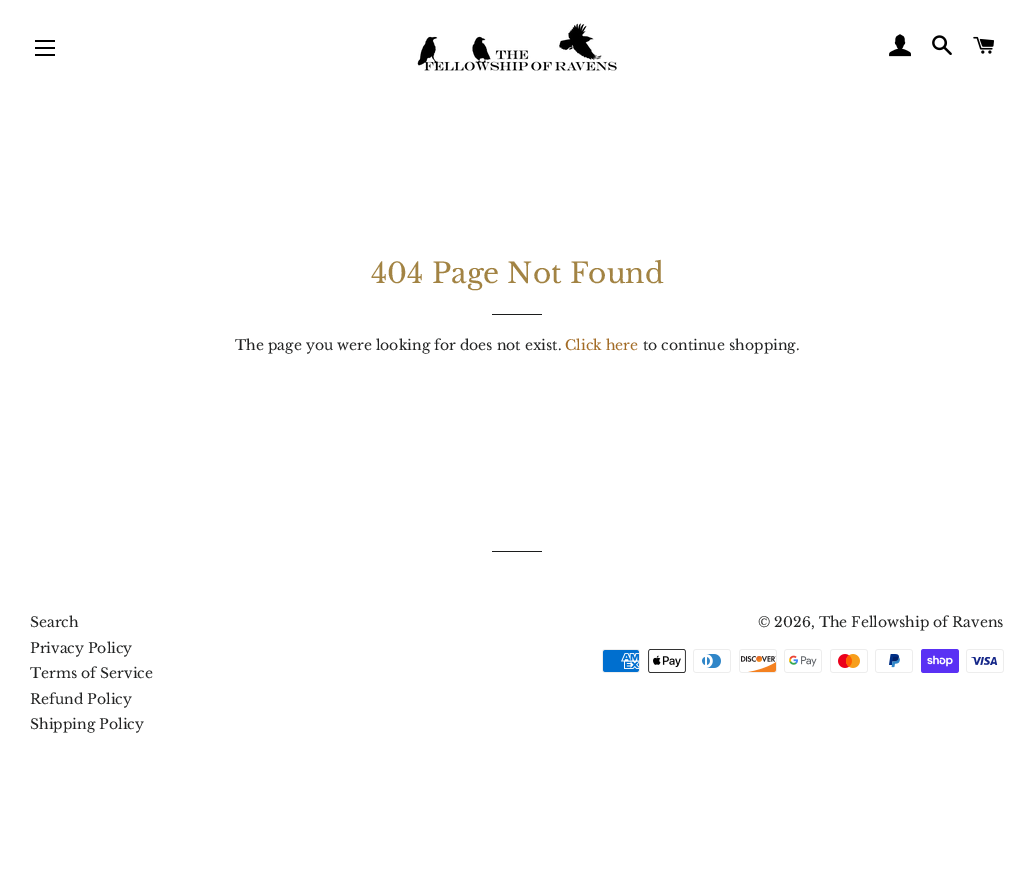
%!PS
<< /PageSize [1034 886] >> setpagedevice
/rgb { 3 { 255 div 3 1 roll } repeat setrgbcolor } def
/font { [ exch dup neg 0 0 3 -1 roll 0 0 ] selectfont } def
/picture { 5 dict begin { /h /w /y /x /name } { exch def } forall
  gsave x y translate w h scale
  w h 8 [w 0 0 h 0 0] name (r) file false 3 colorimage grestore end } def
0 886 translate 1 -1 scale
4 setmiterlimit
255 255 255 rgb
0 0 1034 886 rectfill
[
  [35 40 20 2 0 0 0]
  [35 47 20 2 0 0 0]
  [35 54 20 2 0 0 0]
] { aload pop rgb rectfill } forall
(img/1.rgb) 417 23 200 48 picture
(img/2.rgb) 889 34 22 23 picture
(img/3.rgb) 932 35 20 20 picture
(img/4.rgb) 973 36 21 18 picture
28 29 29 rgb
492 314 50 1 rectfill
492 551 50 1 rectfill
(img/5.rgb) 602 649 38 24 picture
(img/6.rgb) 648 649 38 24 picture
(img/7.rgb) 693 649 38 24 picture
(img/8.rgb) 739 649 38 24 picture
(img/9.rgb) 784 649 38 24 picture
(img/10.rgb) 830 649 38 24 picture
(img/11.rgb) 875 649 38 24 picture
(img/12.rgb) 921 649 38 24 picture
(img/13.rgb) 966 649 38 24 picture
/LibreBaskerville-Regular 28 font
162 131 67 rgb
371 283 moveto (404 Page Not Found) show
/LibreBaskerville-Regular 14 font
34 35 35 rgb
235 350 moveto (The page you were looking for does not exist.) show
162 107 37 rgb
565 350 moveto (Click here) show
34 35 35 rgb
[
  [(to continue shopping.) 643 350]
  [(Search) 30 627]
  [(Privacy Policy) 30 653]
  [(Terms of Service) 30 678]
  [(Refund Policy) 30 704]
  [(Shipping Policy) 30 729]
  [(© 2026, The Fellowship of Ravens) 758 627]
] { aload pop moveto show } forall
showpage
